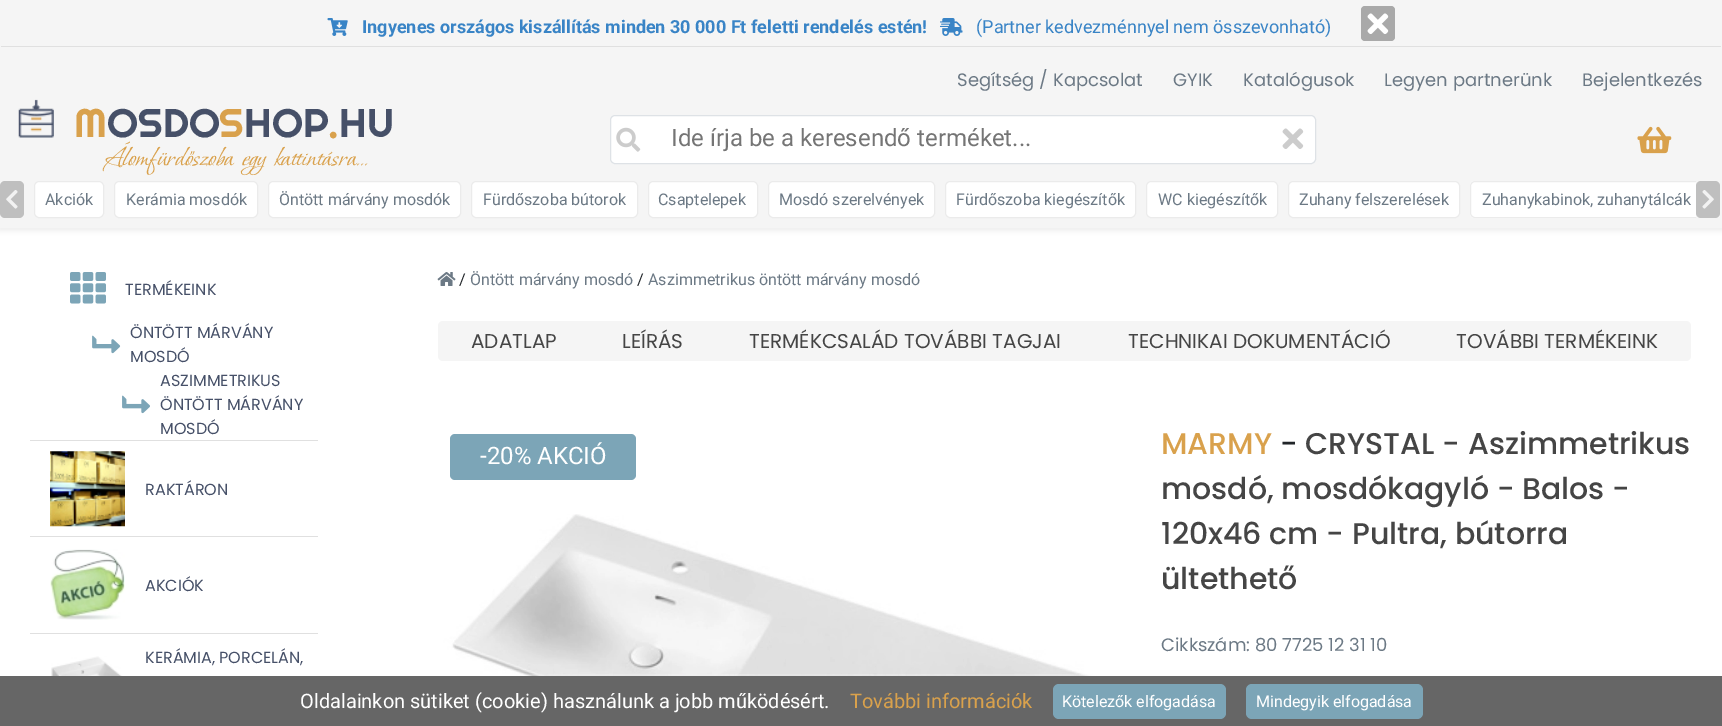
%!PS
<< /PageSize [1722 726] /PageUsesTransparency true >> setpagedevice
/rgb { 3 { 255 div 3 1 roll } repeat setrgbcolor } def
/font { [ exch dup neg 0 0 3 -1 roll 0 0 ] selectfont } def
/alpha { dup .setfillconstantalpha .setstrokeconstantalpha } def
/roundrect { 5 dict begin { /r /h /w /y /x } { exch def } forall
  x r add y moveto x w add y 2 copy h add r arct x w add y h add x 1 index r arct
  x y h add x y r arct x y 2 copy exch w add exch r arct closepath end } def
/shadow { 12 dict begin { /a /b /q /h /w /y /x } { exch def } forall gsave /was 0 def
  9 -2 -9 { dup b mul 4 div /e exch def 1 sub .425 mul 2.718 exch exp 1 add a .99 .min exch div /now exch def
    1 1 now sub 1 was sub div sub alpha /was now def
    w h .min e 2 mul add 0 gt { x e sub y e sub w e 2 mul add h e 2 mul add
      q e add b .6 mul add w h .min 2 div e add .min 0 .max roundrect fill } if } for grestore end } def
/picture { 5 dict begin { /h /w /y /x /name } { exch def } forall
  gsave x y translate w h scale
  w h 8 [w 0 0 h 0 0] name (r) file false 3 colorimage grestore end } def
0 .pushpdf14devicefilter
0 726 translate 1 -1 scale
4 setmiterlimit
255 255 255 rgb
0 0 1722 726 rectfill
238 238 238 rgb
-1 163 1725 68 0 2.5 1 shadow
245 245 245 rgb
0 0 1722 228 rectfill
224 224 224 rgb
1 46 1720 1 rectfill
(img/1.rgb) 327 18 21 18 picture
(img/2.rgb) 940 18 23 18 picture
169 169 169 rgb
1361 6 34 35 4 roundrect fill
(img/3.rgb) 1367 13 22 21 picture
(img/4.rgb) 18 99 36 39 picture
255 255 255 rgb
610.5 115.5 705 48 4.5 roundrect gsave fill grestore
222 226 230 rgb
stroke
(img/5.rgb) 616 127 25 25 picture
(img/6.rgb) 1282 128 22 21 picture
(img/7.rgb) 1637 126 35 28 picture
191 191 191 rgb
0 181 24 37 5 roundrect fill
(img/8.rgb) 6 190 12 19 picture
255 255 255 rgb
34.5 181.5 69 36 4.5 roundrect gsave fill grestore
235 235 235 rgb
stroke
255 255 255 rgb
114.5 181.5 143 36 4.5 roundrect gsave fill grestore
235 235 235 rgb
stroke
255 255 255 rgb
268.5 181.5 192 36 4.5 roundrect gsave fill grestore
235 235 235 rgb
stroke
255 255 255 rgb
471.5 181.5 166 36 4.5 roundrect gsave fill grestore
235 235 235 rgb
stroke
255 255 255 rgb
648.5 181.5 109 36 4.5 roundrect gsave fill grestore
235 235 235 rgb
stroke
255 255 255 rgb
768.5 181.5 166 36 4.5 roundrect gsave fill grestore
235 235 235 rgb
stroke
255 255 255 rgb
945.5 181.5 190 36 4.5 roundrect gsave fill grestore
235 235 235 rgb
stroke
255 255 255 rgb
1146.5 181.5 131 36 4.5 roundrect gsave fill grestore
235 235 235 rgb
stroke
255 255 255 rgb
1288.5 181.5 171 36 4.5 roundrect gsave fill grestore
235 235 235 rgb
stroke
255 255 255 rgb
1475 181 moveto 1696 181 lineto 1696 218 lineto 1475 218 lineto 1472 218 1470 216 1470 213 curveto 1470 186 lineto 1470 183 1472 181 1475 181 curveto closepath fill
gsave
24 181 1672 37 rectclip
235 235 235 rgb
1470.5 181.5 232 36 4.5 roundrect stroke
grestore
191 191 191 rgb
1696 181 24 37 5 roundrect fill
(img/9.rgb) 1702 190 12 19 picture
224 224 224 rgb
30 440 288 1 rectfill
(img/10.rgb) 70 272 36 32 picture
(img/11.rgb) 92 335 29 19 picture
(img/12.rgb) 122 395 28 19 picture
30 536 288 1 rectfill
(img/13.rgb) 50 451 75 76 picture
30 633 288 1 rectfill
(img/14.rgb) 50 549 75 71 picture
(img/15.rgb) 51 656 73 20 picture
(img/16.rgb) 437 272 19 14 picture
245 245 245 rgb
438 321 1253 40 5 roundrect fill
124 165 183 rgb
450 434 186 46 5 roundrect fill
(img/17.rgb) 437 514 664 162 picture
102 102 102 rgb
0 676 1722 50 rectfill
124 165 183 rgb
1053 684 173 35 6 roundrect fill
1246 684 177 35 6 roundrect fill
/Roboto-Bold 18 font
57 132 198 rgb
362 33 moveto (Ingyenes országos kiszállítás minden 30 000 Ft feletti rendelés estén!) show
/Roboto-Regular 18 font
976 33 moveto (\(Partner kedvezménnyel nem összevonható\)) show
/Poppins-Regular 18 font
108 121 133 rgb
[
  [(Segítség / Kapcsolat) 957 86]
  [(GYIK) 1173 86]
  [(Katalógusok) 1243 86]
  [(Legyen partnerünk) 1384 86]
  [(Bejelentkezés) 1582 86]
] { aload pop moveto show } forall
/Righteous-Regular 40 font
217 161 76 rgb
74 137 moveto (M) show
70 80 104 rgb
107 137 moveto (OSDO) show
217 161 76 rgb
219 137 moveto (S) show
70 80 104 rgb
244 137 moveto (HOP) show
217 161 76 rgb
328 137 moveto (.) show
70 80 104 rgb
339 137 moveto (HU) show
/BonheurRoyale-Regular 30 font
217 161 76 rgb
105 165 moveto (Álomfürdőszoba egy kattintásra...) show
/Roboto-Regular 24 font
117 117 117 rgb
671 146 moveto (Ide írja be a keresendő terméket...) show
/Roboto-Regular 16 font
108 121 133 rgb
[
  [(Akciók) 45 205]
  [(Kerámia mosdók) 126 205]
  [(Öntött márvány mosdók) 279 205]
  [(Fürdőszoba bútorok) 483 205]
  [(Csaptelepek) 658 205]
  [(Mosdó szerelvények) 779 205]
  [(Fürdőszoba kiegészítők) 956 205]
  [(WC kiegészítők) 1158 205]
  [(Zuhany felszerelések) 1299 205]
  [(Zuhanykabinok, zuhanytálcák) 1482 205]
] { aload pop moveto show } forall
/Poppins-Regular 16 font
70 80 104 rgb
[
  [(TERMÉKEINK) 125 295]
  [(ÖNTÖTT MÁRVÁNY) 130 338]
  [(MOSDÓ) 130 362]
  [(ASZIMMETRIKUS) 160 386]
  [(ÖNTÖTT MÁRVÁNY) 160 410]
  [(MOSDÓ) 160 434]
  [(RAKTÁRON) 145 495]
  [(AKCIÓK) 145 591]
  [(KERÁMIA, PORCELÁN,) 145 663]
] { aload pop moveto show } forall
/Roboto-Regular 16 font
33 37 41 rgb
459 285 moveto (/) show
108 121 133 rgb
470 285 moveto (Öntött márvány mosdó) show
33 37 41 rgb
637 285 moveto (/) show
108 121 133 rgb
648 285 moveto (Aszimmetrikus öntött márvány mosdó) show
/Poppins-Regular 20 font
69 69 69 rgb
[
  [(ADATLAP) 471 348]
  [(LEÍRÁS) 622 348]
  [(TERMÉKCSALÁD TOVÁBBI TAGJAI) 749 348]
  [(TECHNIKAI DOKUMENTÁCIÓ) 1128 348]
  [(TOVÁBBI TERMÉKEINK) 1456 348]
] { aload pop moveto show } forall
/Roboto-Regular 24 font
255 255 255 rgb
480 464 moveto (-20% AKCIÓ) show
/Poppins-Medium 30 font
217 161 76 rgb
1161 454 moveto (MARMY) show
33 37 41 rgb
1280 454 moveto (-) show
69 69 69 rgb
[
  [(CRYSTAL - Aszimmetrikus) 1305 454]
  [(mosdó, mosdókagyló - Balos -) 1161 499]
  [(120x46 cm - Pultra, bútorra) 1161 544]
  [(ültethető) 1161 589]
] { aload pop moveto show } forall
/Poppins-Regular 18 font
108 121 133 rgb
1161 651 moveto (Cikkszám: 80 7725 12 31 10) show
/Roboto-Regular 20 font
255 255 255 rgb
300 708 moveto (Oldalainkon sütiket \(cookie\) használunk a jobb működésért.) show
217 161 76 rgb
850 708 moveto (További információk) show
/Roboto-Regular 16 font
255 255 255 rgb
1062 707 moveto (Kötelezők elfogadása) show
1256 707 moveto (Mindegyik elfogadása) show
.poppdf14devicefilter showpage
